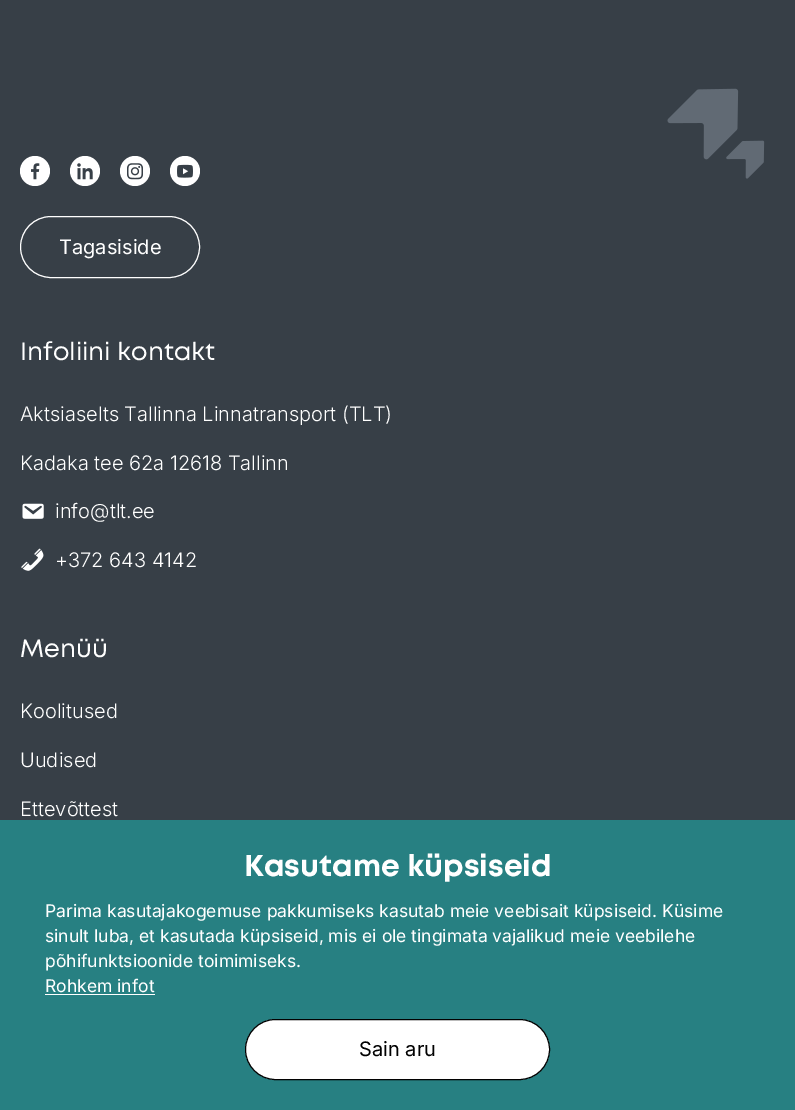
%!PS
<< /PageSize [795 1110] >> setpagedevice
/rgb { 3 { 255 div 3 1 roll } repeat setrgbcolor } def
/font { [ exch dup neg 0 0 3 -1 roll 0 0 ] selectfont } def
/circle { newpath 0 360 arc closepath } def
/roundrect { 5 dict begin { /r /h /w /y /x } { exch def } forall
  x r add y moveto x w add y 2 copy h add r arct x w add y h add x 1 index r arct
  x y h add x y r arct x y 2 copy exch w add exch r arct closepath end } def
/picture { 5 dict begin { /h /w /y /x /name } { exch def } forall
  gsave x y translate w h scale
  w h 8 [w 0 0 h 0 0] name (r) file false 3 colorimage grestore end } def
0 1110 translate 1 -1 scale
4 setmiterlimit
55 63 71 rgb
0 0 795 1110 rectfill
(img/1.rgb) 667 88 98 91 picture
255 255 255 rgb
35 171 15 circle fill
(img/2.rgb) 31 163 9 17 picture
85 171 15 circle fill
(img/3.rgb) 77 163 16 17 picture
135 171 15 circle fill
(img/4.rgb) 127 163 16 17 picture
185 171 15 circle fill
(img/5.rgb) 177 164 16 14 picture
20.5 216.5 179 61 30.5 roundrect stroke
(img/6.rgb) 22 503 22 16 picture
(img/7.rgb) 21 548 23 23 picture
39 128 130 rgb
0 820 795 290 rectfill
255 255 255 rgb
45 994 110 1 rectfill
245.5 1019.5 304 60 30 roundrect gsave fill grestore
1 1 1 rgb
stroke
/Inter-Regular 20 font
255 255 255 rgb
59 254 moveto (Tagasiside) show
/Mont-Regular 25 font
20 360 moveto (Infoliini kontakt) show
/Inter-Light 20 font
[
  [(Aktsiaselts Tallinna Linnatransport \(TLT\)) 20 421]
  [(Kadaka tee 62a 12618 Tallinn) 20 470]
  [(info@tlt.ee) 55 518]
  [(+372 643 4142) 55 567]
] { aload pop moveto show } forall
/Mont-Regular 25 font
20 657 moveto (Menüü) show
/Inter-Light 20 font
[
  [(Koolitused) 20 718]
  [(Uudised) 20 767]
  [(Ettevõttest) 20 816]
] { aload pop moveto show } forall
/Mont-Bold 30 font
244 876 moveto (Kasutame küpsiseid) show
/Inter-Regular 17.5 font
[
  [(Parima kasutajakogemuse pakkumiseks kasutab meie veebisait küpsiseid. Küsime) 45 917]
  [(sinult luba, et kasutada küpsiseid, mis ei ole tingimata vajalikud meie veebilehe) 45 942]
  [(põhifunktsioonide toimimiseks.) 45 967]
  [(Rohkem infot) 45 992]
] { aload pop moveto show } forall
/Inter-Regular 20 font
1 1 1 rgb
359 1056 moveto (Sain aru) show
showpage
